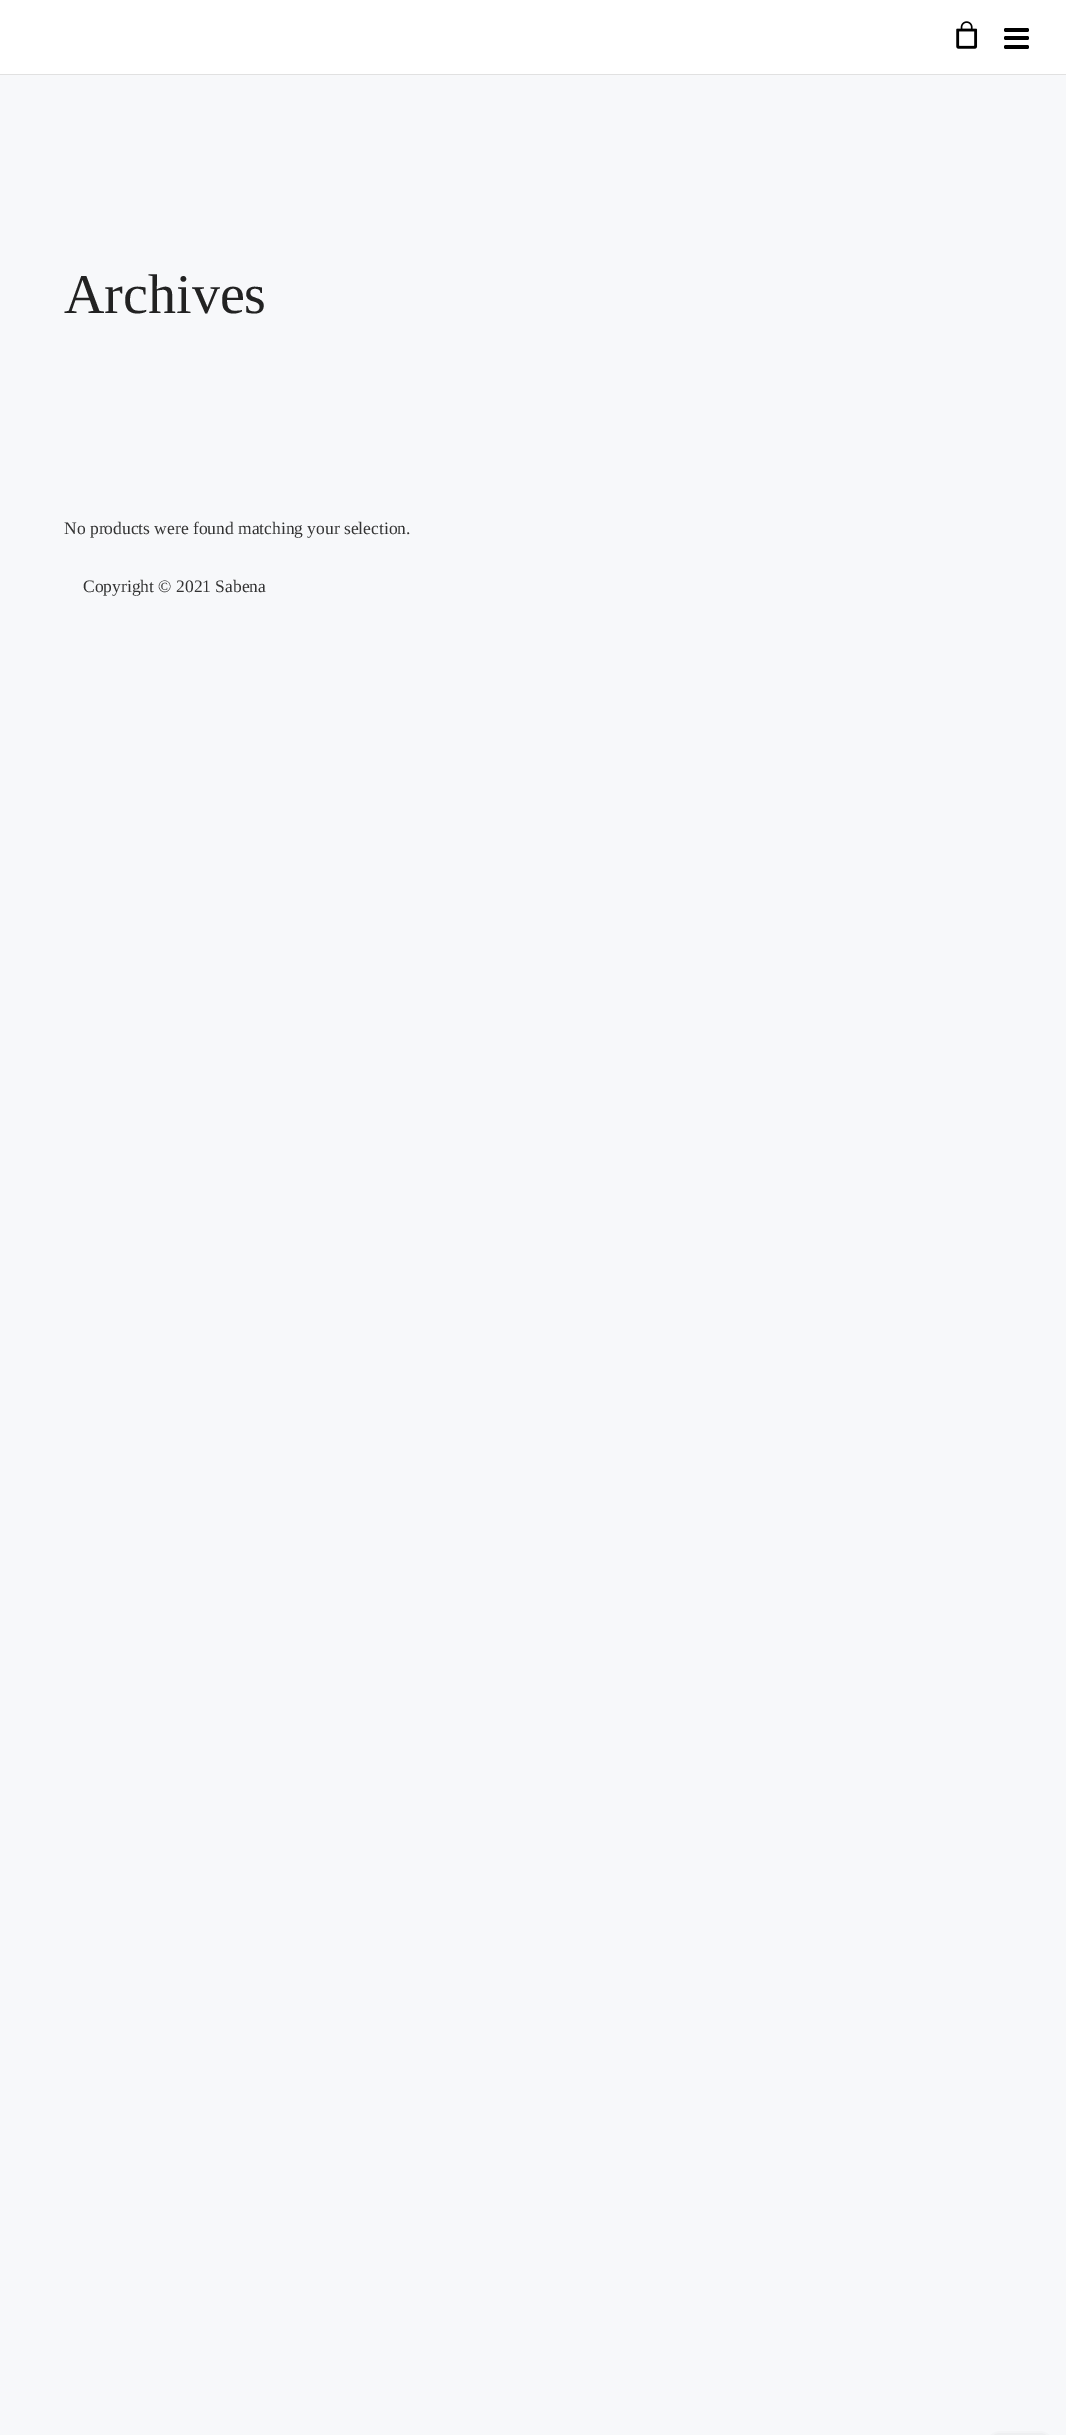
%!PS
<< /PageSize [1066 2435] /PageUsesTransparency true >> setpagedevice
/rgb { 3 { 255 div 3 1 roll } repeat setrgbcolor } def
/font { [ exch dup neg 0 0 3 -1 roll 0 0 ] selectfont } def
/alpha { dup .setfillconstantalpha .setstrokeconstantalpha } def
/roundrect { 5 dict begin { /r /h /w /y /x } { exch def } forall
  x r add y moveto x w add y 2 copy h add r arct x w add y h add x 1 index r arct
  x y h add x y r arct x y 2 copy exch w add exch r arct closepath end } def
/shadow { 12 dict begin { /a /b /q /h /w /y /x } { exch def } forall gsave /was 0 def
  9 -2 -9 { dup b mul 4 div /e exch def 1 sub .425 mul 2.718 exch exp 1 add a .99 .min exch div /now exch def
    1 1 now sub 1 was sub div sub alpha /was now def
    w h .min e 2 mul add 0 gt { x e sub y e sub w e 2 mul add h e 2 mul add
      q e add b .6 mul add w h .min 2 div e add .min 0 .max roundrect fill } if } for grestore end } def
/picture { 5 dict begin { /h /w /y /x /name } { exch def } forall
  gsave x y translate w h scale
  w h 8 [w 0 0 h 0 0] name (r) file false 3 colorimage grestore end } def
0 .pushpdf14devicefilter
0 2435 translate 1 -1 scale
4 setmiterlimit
247 248 250 rgb
0 0 1066 2435 rectfill
255 255 255 rgb
0 0 1066 74 rectfill
225 225 225 rgb
0 74 1066 1 rectfill
(img/1.rgb) 956 21 22 28 picture
0 0 0 rgb
1004 28 25 4 2 roundrect fill
1004 36 25 4 2 roundrect fill
1004 45 25 4 2 roundrect fill
995 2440 50 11 4 4 0.5 shadow
/LiberationSerif-Regular 56 font
34 34 34 rgb
64 313 moveto (Archives) show
/LiberationSerif-Regular 17.5 font
51 51 51 rgb
64 534 moveto (No products were found matching your selection.) show
83 592 moveto (Copyright © 2021 Sabena) show
.poppdf14devicefilter showpage
